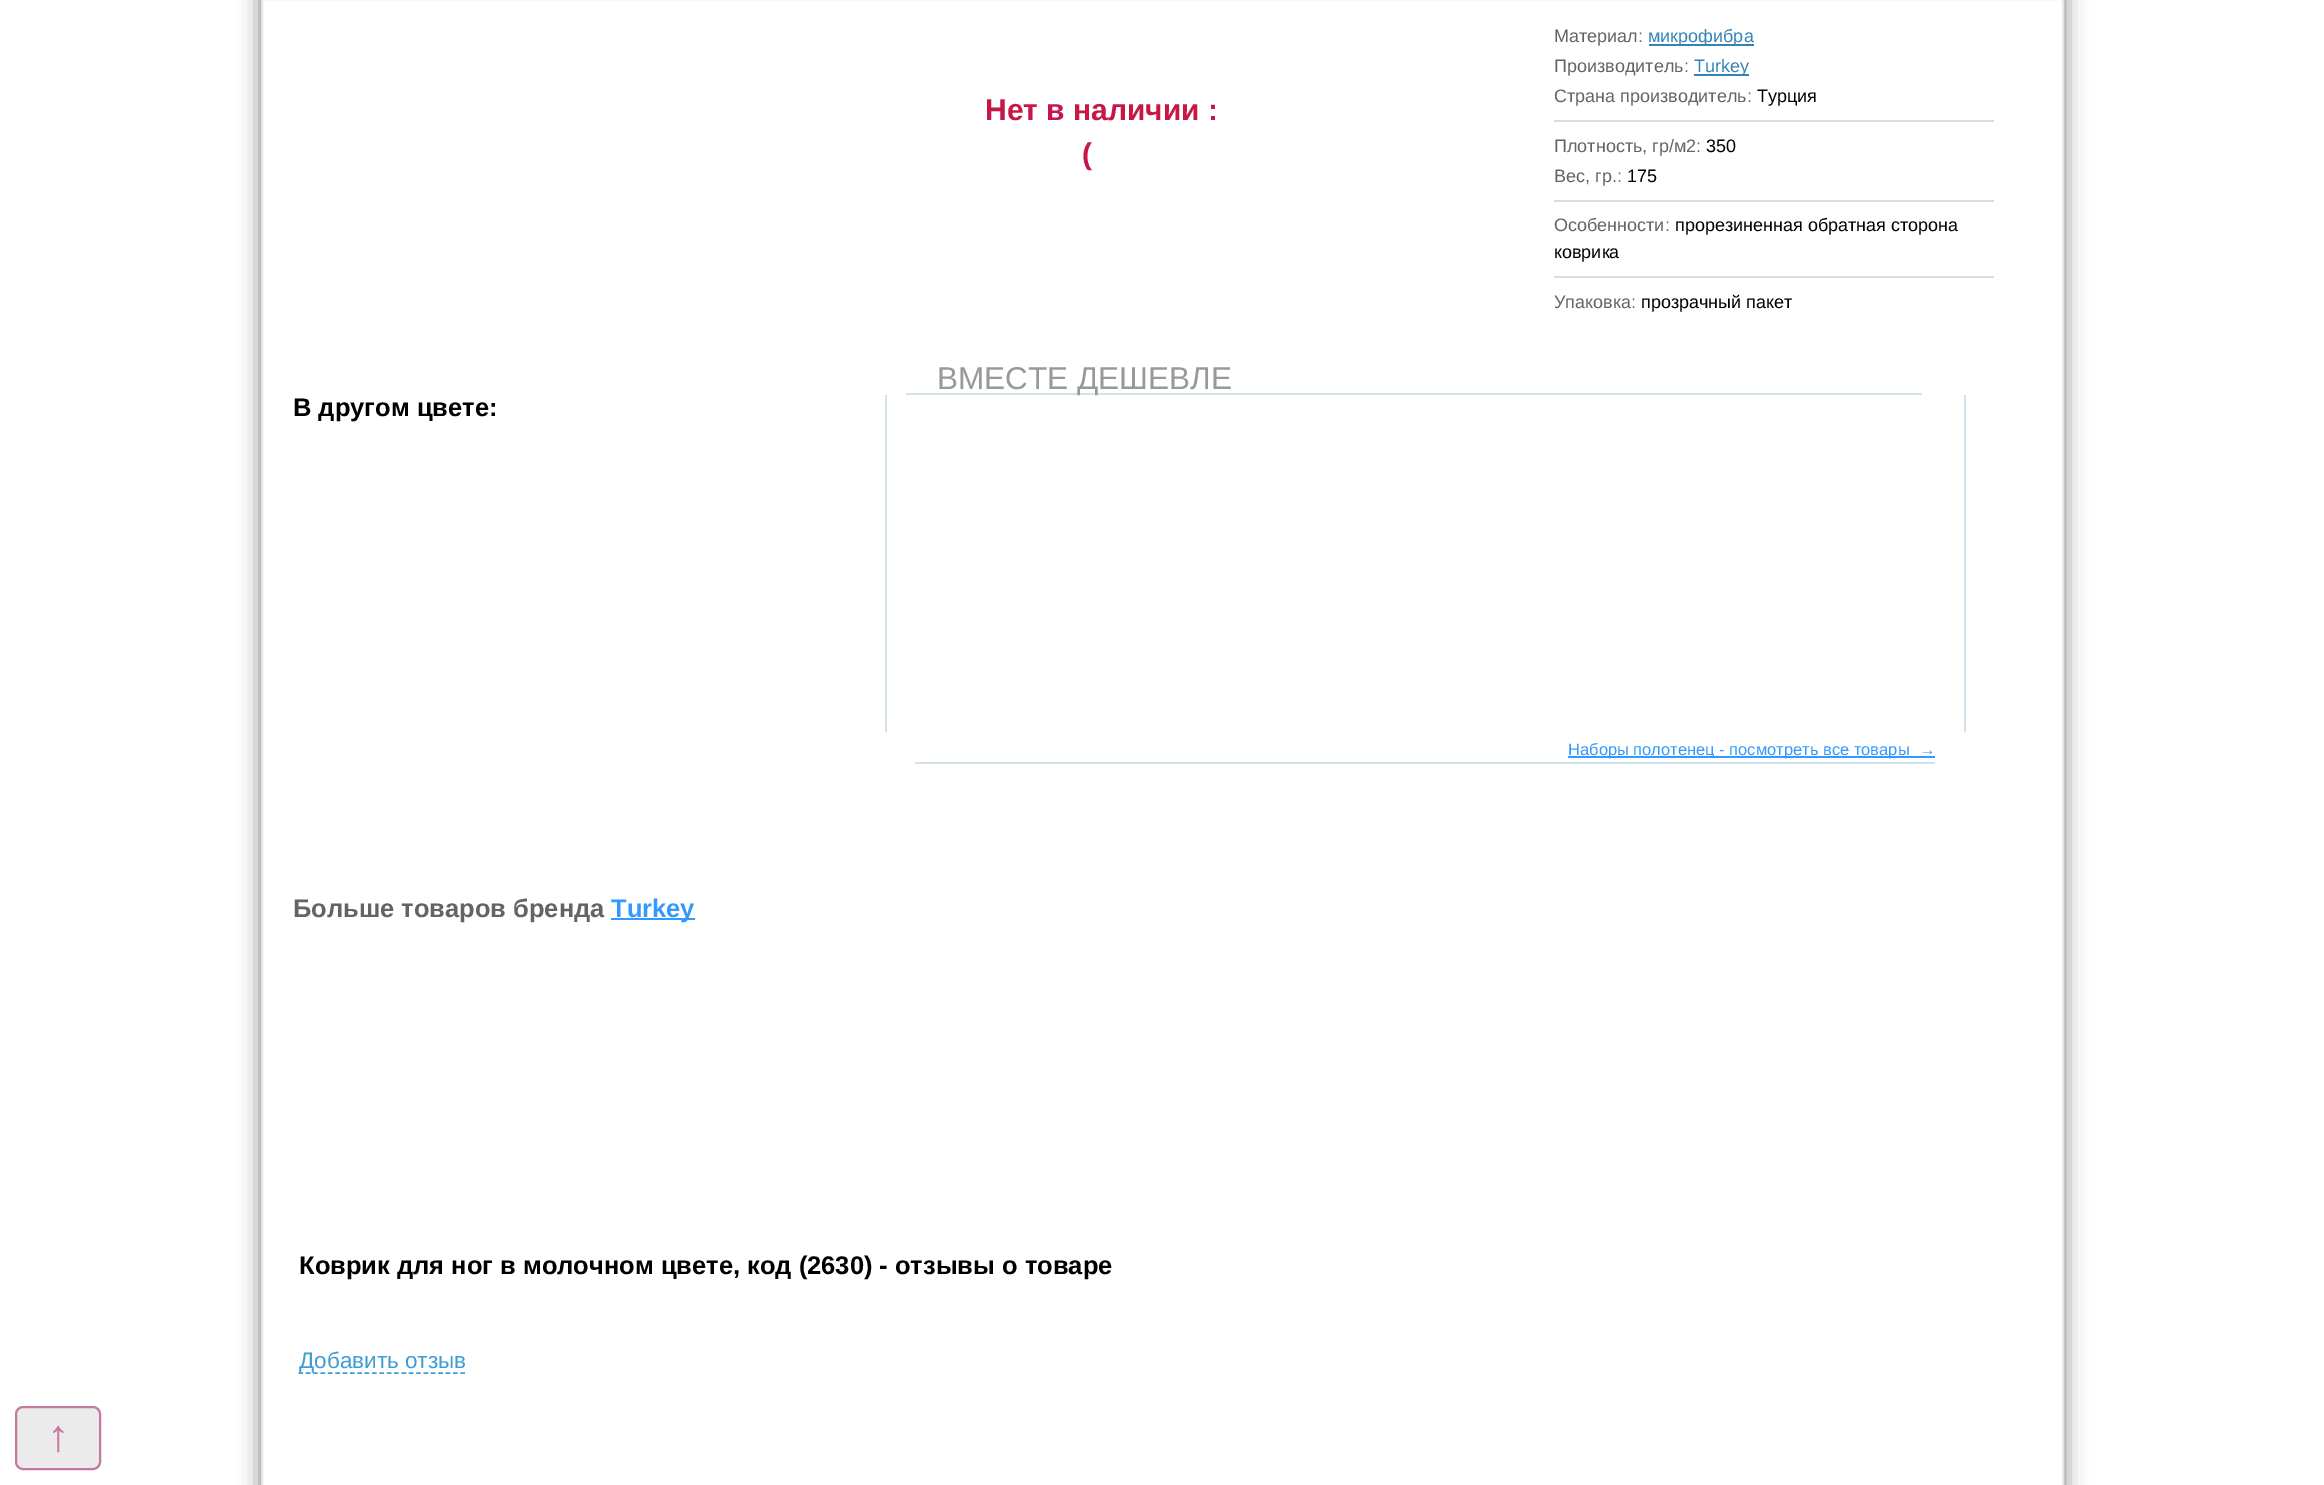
%!PS
<< /PageSize [2324 1485] /PageUsesTransparency true >> setpagedevice
/rgb { 3 { 255 div 3 1 roll } repeat setrgbcolor } def
/font { [ exch dup neg 0 0 3 -1 roll 0 0 ] selectfont } def
/alpha { dup .setfillconstantalpha .setstrokeconstantalpha } def
/roundrect { 5 dict begin { /r /h /w /y /x } { exch def } forall
  x r add y moveto x w add y 2 copy h add r arct x w add y h add x 1 index r arct
  x y h add x y r arct x y 2 copy exch w add exch r arct closepath end } def
/shadow { 12 dict begin { /a /b /q /h /w /y /x } { exch def } forall gsave /was 0 def
  9 -2 -9 { dup b mul 4 div /e exch def 1 sub .425 mul 2.718 exch exp 1 add a .99 .min exch div /now exch def
    1 1 now sub 1 was sub div sub alpha /was now def
    w h .min e 2 mul add 0 gt { x e sub y e sub w e 2 mul add h e 2 mul add
      q e add b .6 mul add w h .min 2 div e add .min 0 .max roundrect fill } if } for grestore end } def
0 .pushpdf14devicefilter
0 1485 translate 1 -1 scale
4 setmiterlimit
255 255 255 rgb
0 0 2324 1485 rectfill
gsave
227 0 moveto 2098 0 lineto 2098 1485 lineto 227 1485 lineto closepath 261 -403 moveto 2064 -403 lineto 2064 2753 lineto 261 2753 lineto closepath eoclip newpath
119 119 119 rgb
261 -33 1803 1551 0 11 1 shadow
grestore
231 231 231 rgb
2 setlinewidth
262 -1 1801 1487 rectstroke
[
  [1649 44 105 2 51 131 182]
  [1694 74 55 2 51 131 182]
  [1554 120 440 2 221 221 221]
  [1554 200 440 2 221 221 221]
  [1554 276 440 2 221 221 221]
  [906 393 1016 2 210 226 234]
  [1964 395 2 337 210 226 234]
  [885 395 2 337 210 226 234]
  [915 762 1020 2 210 226 234]
  [1568 756 367 2 51 153 255]
  [611 918 84 2 51 153 255]
] { aload pop rgb rectfill } forall
63 157 212 rgb
1.5 setlinewidth
[4.5 2.86] 0 setdash
298.5 1373 moveto 465 1373 lineto stroke
235 235 235 rgb
16 1407 84 62 7 roundrect gsave fill grestore
197 121 161 rgb
2 setlinewidth
[] 0 setdash
stroke
/LiberationSans-Bold 30 font
199 22 72 rgb
985 120 moveto (Нет в наличии :) show
1082 164 moveto (\() show
/LiberationSans-Regular 18 font
100 100 100 rgb
1554 42 moveto (Материал:) show
51 131 182 rgb
1648 42 moveto (микрофибра) show
100 100 100 rgb
1554 72 moveto (Производитель:) show
51 131 182 rgb
1694 72 moveto (Turkey) show
100 100 100 rgb
1554 102 moveto (Страна производитель:) show
0 0 0 rgb
1757 102 moveto (Турция) show
100 100 100 rgb
1554 152 moveto (Плотность, гр/м2:) show
0 0 0 rgb
1706 152 moveto (350) show
100 100 100 rgb
1554 182 moveto (Вес, гр.:) show
0 0 0 rgb
1627 182 moveto (175) show
100 100 100 rgb
1554 231 moveto (Особенности:) show
0 0 0 rgb
1675 231 moveto (прорезиненная обратная сторона) show
1554 258 moveto (коврика) show
100 100 100 rgb
1554 308 moveto (Упаковка:) show
0 0 0 rgb
1641 308 moveto (прозрачный пакет) show
/LiberationSans-Bold 25.5 font
293 416 moveto (В другом цвете:) show
/LiberationSans-Regular 31.5 font
153 153 153 rgb
937 389 moveto (ВМЕСТЕ ДЕШЕВЛЕ) show
/LiberationSans-Regular 16.5 font
51 153 255 rgb
1568 755 moveto (Наборы полотенец - посмотреть все товары  →) show
/LiberationSans-Bold 25.5 font
100 100 100 rgb
293 917 moveto (Больше товаров бренда) show
51 153 255 rgb
611 917 moveto (Turkey) show
0 0 0 rgb
299 1274 moveto (Коврик для ног в молочном цвете, код \(2630\) - отзывы о товаре) show
/LiberationSans-Regular 22.5 font
63 157 212 rgb
299 1368 moveto (Добавить отзыв) show
/LiberationSans-Regular 45 font
197 121 161 rgb
47 1451 moveto (↑) show
.poppdf14devicefilter showpage
